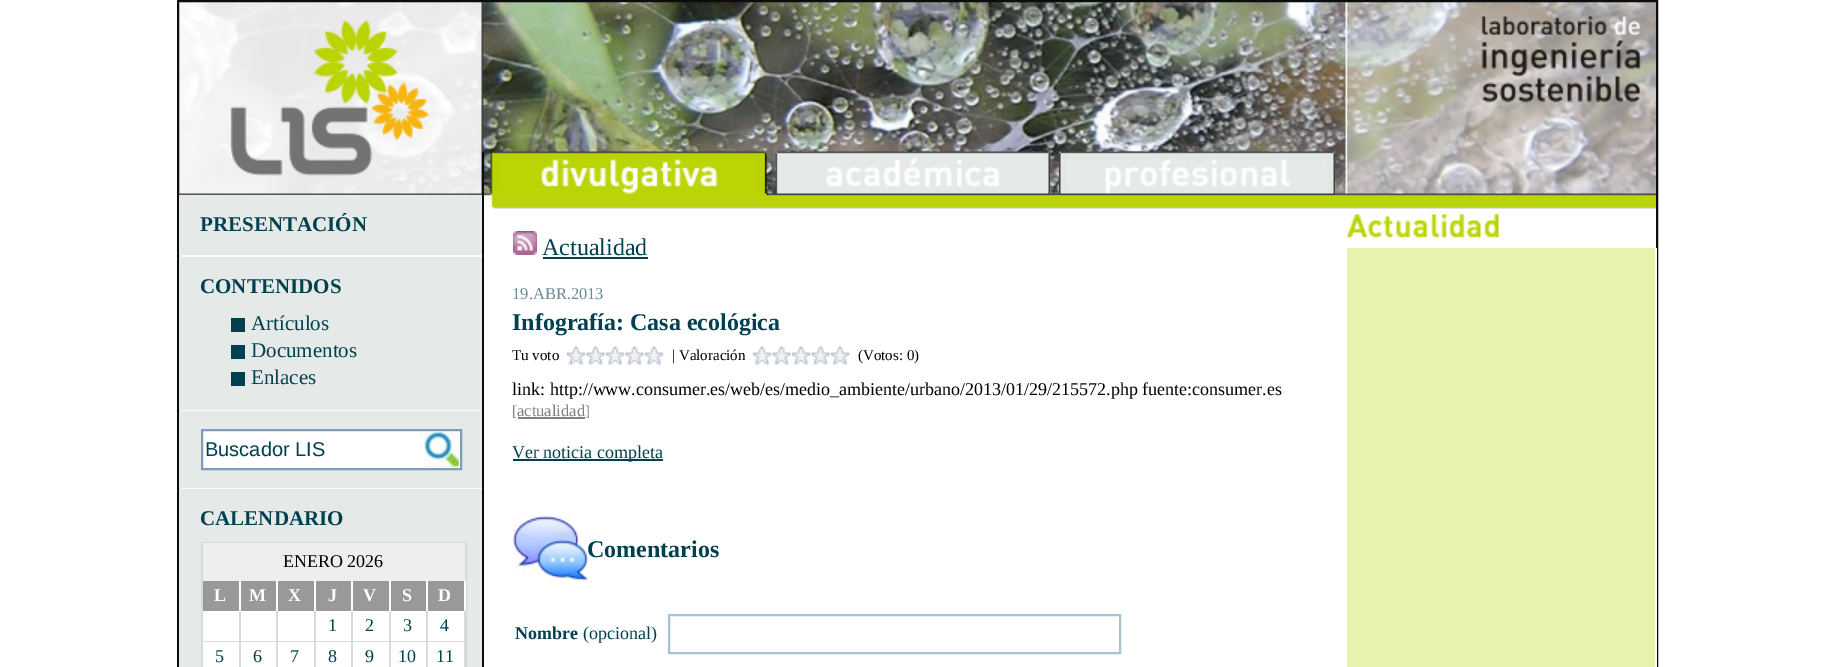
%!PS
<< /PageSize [1833 667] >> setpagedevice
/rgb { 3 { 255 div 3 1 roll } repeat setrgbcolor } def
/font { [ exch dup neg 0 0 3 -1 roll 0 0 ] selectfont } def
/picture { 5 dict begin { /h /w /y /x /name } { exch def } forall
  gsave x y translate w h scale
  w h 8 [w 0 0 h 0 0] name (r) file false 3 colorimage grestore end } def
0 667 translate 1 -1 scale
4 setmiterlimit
255 255 255 rgb
0 0 1833 667 rectfill
(img/1.rgb) 179 2 1477 207 picture
12 12 12 rgb
2 setlinewidth
178 1 1479 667 rectstroke
[
  [482 152 2 515 12 12 12]
  [179 195 303 60 229 233 231]
  [179 257 303 153 229 233 231]
  [231 318 14 14 0 64 79]
  [231 345 14 14 0 64 79]
  [231 372 14 14 0 64 79]
  [179 411 303 77 229 233 231]
] { aload pop rgb rectfill } forall
255 255 255 rgb
202 430 moveto 461 430 lineto 461 469 lineto 202 469 lineto closepath gsave fill grestore
127 157 185 rgb
stroke
239 239 239 rgb
425 466 34 1 rectfill
(img/2.rgb) 424 432 35 35 picture
229 233 231 rgb
179 489 303 178 rectfill
214 220 217 rgb
202 543 264 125 rectstroke
[
  [203 543 262 38 238 238 238]
  [203 581 261 30 153 153 153]
  [239 581 2 30 255 255 255]
  [276 581 2 30 255 255 255]
  [314 581 2 30 255 255 255]
  [351 581 2 30 255 255 255]
  [389 581 2 30 255 255 255]
  [426 581 2 30 255 255 255]
  [464 581 2 30 255 255 255]
  [203 611 261 30 255 255 255]
  [239 611 2 31 214 220 217]
  [203 641 37 1 214 220 217]
  [276 611 2 31 214 220 217]
  [240 641 38 1 214 220 217]
  [314 611 2 31 214 220 217]
  [278 641 37 1 214 220 217]
  [351 611 2 31 214 220 217]
  [315 641 38 1 214 220 217]
  [389 611 2 31 214 220 217]
  [353 641 37 1 214 220 217]
  [426 611 2 31 214 220 217]
  [390 641 38 1 214 220 217]
  [464 611 1 56 214 220 217]
  [428 641 37 1 214 220 217]
  [203 642 261 25 255 255 255]
  [239 642 2 25 214 220 217]
  [276 642 2 25 214 220 217]
  [314 642 2 25 214 220 217]
  [351 642 2 25 214 220 217]
  [389 642 2 25 214 220 217]
  [426 642 2 25 214 220 217]
] { aload pop rgb rectfill } forall
(img/3.rgb) 490 151 277 44 picture
(img/4.rgb) 775 151 275 44 picture
(img/5.rgb) 1059 151 276 44 picture
(img/6.rgb) 513 231 24 24 picture
0 64 79 rgb
543 257 105 2 rectfill
(img/7.rgb) 567 346 19 19 picture
(img/8.rgb) 586 346 19 19 picture
(img/9.rgb) 606 346 19 19 picture
(img/8.rgb) 625 346 19 19 picture
(img/9.rgb) 645 346 19 19 picture
(img/10.rgb) 753 346 19 19 picture
(img/11.rgb) 772 346 19 19 picture
(img/9.rgb) 792 346 19 19 picture
(img/11.rgb) 811 346 19 19 picture
(img/9.rgb) 831 346 19 19 picture
128 128 128 rgb
518 417 67 2 rectfill
0 64 79 rgb
513 459 150 2 rectfill
(img/12.rgb) 513 516 75 65 picture
168 195 207 rgb
669 615 451 38 rectstroke
(img/13.rgb) 1347 211 156 29 picture
233 241 175 rgb
1347 248 308 419 rectfill
255 255 255 rgb
1656 248 1 419 rectfill
/LiberationSerif-Bold 21 font
0 64 79 rgb
200 231 moveto (PRESENTACIÓN) show
200 293 moveto (CONTENIDOS) show
/LiberationSerif-Regular 21 font
[
  [(Artículos) 251 330]
  [(Documentos) 251 357]
  [(Enlaces) 251 384]
] { aload pop moveto show } forall
/LiberationSans-Regular 20 font
205 456 moveto (Buscador LIS) show
/LiberationSerif-Bold 21 font
200 525 moveto (CALENDARIO) show
/LiberationSerif-Regular 18 font
0 0 0 rgb
283 567 moveto (ENERO 2026) show
/LiberationSerif-Bold 18 font
255 255 255 rgb
[
  [(L) 214 601]
  [(M) 249 601]
  [(X) 288 601]
  [(J) 328 601]
  [(V) 363 601]
  [(S) 402 601]
  [(D) 438 601]
] { aload pop moveto show } forall
/LiberationSerif-Regular 18 font
0 64 79 rgb
[
  [(1) 328 631]
  [(2) 365 631]
  [(3) 403 631]
  [(4) 440 631]
  [(5) 215 662]
  [(6) 253 662]
  [(7) 290 662]
  [(8) 328 662]
  [(9) 365 662]
  [(10) 398 662]
  [(11) 436 662]
] { aload pop moveto show } forall
/LiberationSerif-Regular 24 font
542 255 moveto (Actualidad) show
/LiberationSerif-Regular 16.5 font
102 140 149 rgb
512 299 moveto (19.ABR.2013) show
/LiberationSerif-Bold 24 font
0 64 79 rgb
512 330 moveto (Infografía: Casa ecológica) show
/LiberationSerif-Regular 15 font
0 0 0 rgb
[
  [(Tu voto) 512 360]
  [(| Valoración) 672 360]
  [(\(Votos: 0\)) 858 360]
] { aload pop moveto show } forall
/LiberationSerif-Regular 18 font
512 395 moveto (link: http://www.consumer.es/web/es/medio_ambiente/urbano/2013/01/29/215572.php fuente:consumer.es) show
/LiberationSerif-Regular 15 font
128 128 128 rgb
512 416 moveto ([) show
/LiberationSerif-Regular 16.5 font
517 416 moveto (actualidad) show
/LiberationSerif-Regular 15 font
585 416 moveto (]) show
/LiberationSerif-Regular 18 font
0 64 79 rgb
512 458 moveto (Ver noticia completa) show
/LiberationSerif-Bold 24 font
587 557 moveto (Comentarios) show
/LiberationSerif-Bold 18 font
515 639 moveto (Nombre) show
/LiberationSerif-Regular 18 font
583 639 moveto (\(opcional\)) show
showpage
